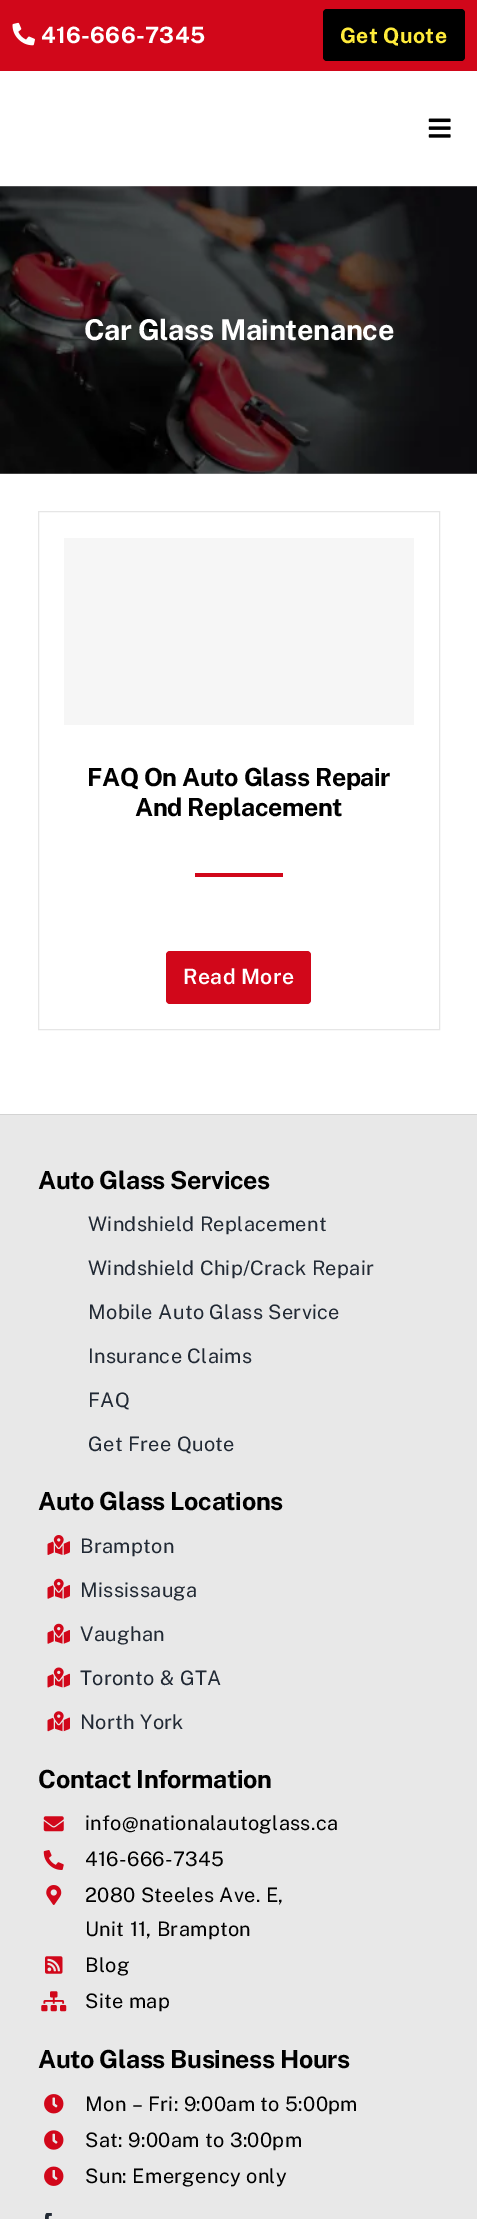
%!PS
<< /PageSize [477 2219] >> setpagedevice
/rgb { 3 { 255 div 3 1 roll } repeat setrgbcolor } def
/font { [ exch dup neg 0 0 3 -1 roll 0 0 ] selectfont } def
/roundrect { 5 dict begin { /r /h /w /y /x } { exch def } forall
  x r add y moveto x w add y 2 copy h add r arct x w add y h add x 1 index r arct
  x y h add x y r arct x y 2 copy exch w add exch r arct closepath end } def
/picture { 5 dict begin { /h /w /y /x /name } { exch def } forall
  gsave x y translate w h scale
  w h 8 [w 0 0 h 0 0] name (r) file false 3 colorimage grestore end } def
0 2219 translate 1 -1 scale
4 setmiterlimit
255 255 255 rgb
0 0 477 2219 rectfill
209 7 26 rgb
0 0 477 71 rectfill
(img/1.rgb) 12 22 23 24 picture
0 0 0 rgb
323 9 142 52 4 roundrect fill
(img/2.rgb) 428 118 23 20 picture
(img/3.rgb) 0 186 477 288 picture
230 230 230 rgb
38.5 511.5 401 518 rectstroke
246 246 246 rgb
64 538 350 187 rectfill
209 7 26 rgb
195 873 88 4 rectfill
166 951 145 53 4 roundrect fill
232 232 232 rgb
0 1115 477 1104 rectfill
211 211 211 rgb
0 1114 477 1 rectfill
(img/4.rgb) 47 1535 23 20 picture
(img/5.rgb) 47 1578 23 21 picture
(img/5.rgb) 47 1623 23 21 picture
(img/6.rgb) 47 1667 23 21 picture
(img/7.rgb) 47 1711 23 21 picture
(img/8.rgb) 43 1816 21 16 picture
(img/9.rgb) 43 1850 21 20 picture
(img/10.rgb) 46 1885 16 20 picture
(img/11.rgb) 45 1956 18 18 picture
(img/12.rgb) 41 1991 26 21 picture
(img/13.rgb) 44 2094 20 20 picture
(img/14.rgb) 44 2130 20 20 picture
(img/15.rgb) 44 2166 20 20 picture
(img/16.rgb) 45 2213 7 6 picture
/PublicSans-Bold 22.5 font
255 255 255 rgb
41 43 moveto 0.3 0 (416-666-7345) ashow
/PublicSans-Bold 21.25 font
255 235 59 rgb
340 43 moveto 0.3 0 (Get Quote) ashow
/PublicSans-Bold 28.75 font
255 255 255 rgb
84 340 moveto -0.4 0 (Car Glass Maintenance) ashow
/PublicSans-Bold 25 font
0 0 0 rgb
87 786 moveto -0.4 0 (FAQ On Auto Glass Repair) ashow
135 816 moveto -0.4 0 (And Replacement) ashow
/PublicSans-SemiBold 21.25 font
255 255 255 rgb
183 984 moveto 0.3 0 (Read More) ashow
/PublicSans-Bold 25 font
0 0 0 rgb
38 1189 moveto -0.4 0 (Auto Glass Services) ashow
/PublicSans-Regular 20 font
33 41 52 rgb
88 1231 moveto 0.3 0 (Windshield Replacement) ashow
88 1275 moveto 0.3 0 (Windshield Chip/Crack Repair) ashow
88 1319 moveto 0.3 0 (Mobile Auto Glass Service) ashow
88 1363 moveto 0.3 0 (Insurance Claims) ashow
88 1407 moveto 0.3 0 (FAQ) ashow
88 1451 moveto 0.3 0 (Get Free Quote) ashow
/PublicSans-Bold 25 font
0 0 0 rgb
38 1510 moveto -0.4 0 (Auto Glass Locations) ashow
/PublicSans-Regular 20 font
33 41 52 rgb
80 1553 moveto 0.3 0 (Brampton) ashow
80 1597 moveto 0.3 0 (Mississauga) ashow
80 1641 moveto 0.3 0 (Vaughan) ashow
80 1685 moveto 0.3 0 (Toronto & GTA) ashow
80 1729 moveto 0.3 0 (North York) ashow
/PublicSans-Bold 25 font
0 0 0 rgb
38 1788 moveto -0.4 0 (Contact Information) ashow
/PublicSans-Regular 20 font
85 1830 moveto 0.3 0 (info@nationalautoglass.ca) ashow
85 1866 moveto 0.3 0 (416-666-7345) ashow
85 1902 moveto 0.3 0 (2080 Steeles Ave. E,) ashow
85 1936 moveto 0.3 0 (Unit 11, Brampton) ashow
85 1972 moveto 0.3 0 (Blog) ashow
85 2008 moveto 0.3 0 (Site map) ashow
/PublicSans-Bold 25 font
38 2068 moveto -0.4 0 (Auto Glass Business Hours) ashow
/PublicSans-Regular 20 font
85 2111 moveto 0.3 0 (Mon – Fri: 9:00am to 5:00pm) ashow
85 2147 moveto 0.3 0 (Sat: 9:00am to 3:00pm) ashow
85 2183 moveto 0.3 0 (Sun: Emergency only) ashow
showpage
